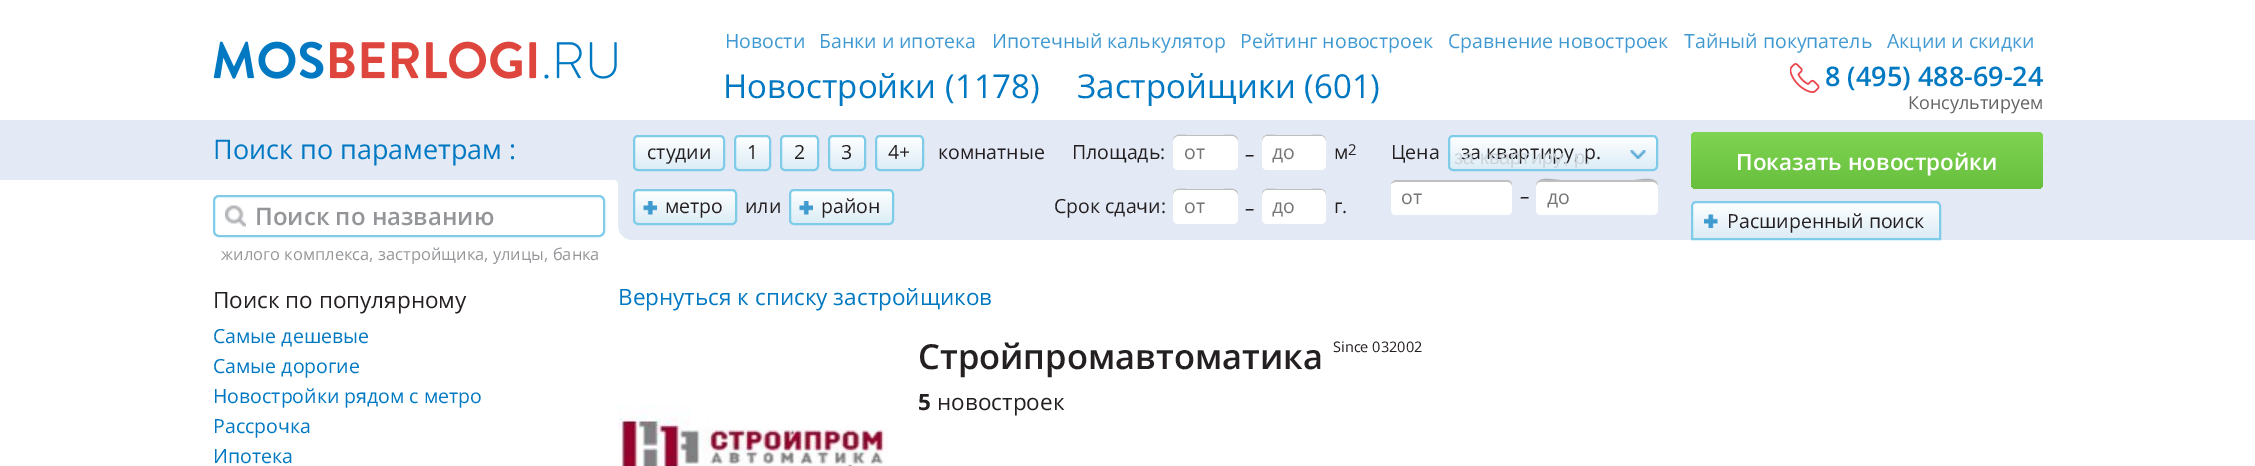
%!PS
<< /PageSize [2255 466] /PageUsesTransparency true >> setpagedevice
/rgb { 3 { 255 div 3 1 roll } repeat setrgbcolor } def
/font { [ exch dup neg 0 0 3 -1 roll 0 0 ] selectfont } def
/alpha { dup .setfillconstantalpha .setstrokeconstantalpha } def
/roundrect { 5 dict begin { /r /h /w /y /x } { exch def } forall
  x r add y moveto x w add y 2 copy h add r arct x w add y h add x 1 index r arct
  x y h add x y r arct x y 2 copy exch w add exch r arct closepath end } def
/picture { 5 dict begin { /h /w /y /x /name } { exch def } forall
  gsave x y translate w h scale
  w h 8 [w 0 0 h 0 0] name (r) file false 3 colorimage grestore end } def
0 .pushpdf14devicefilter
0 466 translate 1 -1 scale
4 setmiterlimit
255 255 255 rgb
0 0 2255 466 rectfill
(img/1.rgb) 213 41 404 38 picture
(img/2.rgb) 1790 63 30 30 picture
227 234 245 rgb
0 120 2255 60 rectfill
618 180 moveto 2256 180 lineto 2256 240 lineto 633 240 lineto 624.5 240 618 233.5 618 225 curveto closepath fill
gsave
633 135 92 36 5 roundrect clip newpath
gsave 633 137 moveto 725 137 lineto 725 170 lineto 633 170 lineto closepath clip newpath
<< /ShadingType 2 /ColorSpace /DeviceRGB /Coords [679 137 679 170] /Extend [true true] /Function << /FunctionType 2 /Domain [0 1] /C0 [0.996 1 1] /C1 [0.859 0.925 0.965] /N 1 >> >> shfill grestore
grestore
127 204 232 rgb
2 setlinewidth
634 136 90 34 4 roundrect stroke
gsave
734 135 37 36 5 roundrect clip newpath
gsave 734 137 moveto 771 137 lineto 771 170 lineto 734 170 lineto closepath clip newpath
<< /ShadingType 2 /ColorSpace /DeviceRGB /Coords [752 137 752 170] /Extend [true true] /Function << /FunctionType 2 /Domain [0 1] /C0 [0.996 1 1] /C1 [0.859 0.925 0.965] /N 1 >> >> shfill grestore
grestore
735 136 35 34 4 roundrect stroke
gsave
780 135 39 36 5 roundrect clip newpath
gsave 780 137 moveto 819 137 lineto 819 170 lineto 780 170 lineto closepath clip newpath
<< /ShadingType 2 /ColorSpace /DeviceRGB /Coords [800 137 800 170] /Extend [true true] /Function << /FunctionType 2 /Domain [0 1] /C0 [0.996 1 1] /C1 [0.859 0.925 0.965] /N 1 >> >> shfill grestore
grestore
781 136 37 34 4 roundrect stroke
gsave
828 135 38 36 5 roundrect clip newpath
gsave 828 137 moveto 866 137 lineto 866 170 lineto 828 170 lineto closepath clip newpath
<< /ShadingType 2 /ColorSpace /DeviceRGB /Coords [847 137 847 170] /Extend [true true] /Function << /FunctionType 2 /Domain [0 1] /C0 [0.996 1 1] /C1 [0.859 0.925 0.965] /N 1 >> >> shfill grestore
grestore
829 136 36 34 4 roundrect stroke
gsave
875 135 49 36 5 roundrect clip newpath
gsave 875 137 moveto 924 137 lineto 924 170 lineto 875 170 lineto closepath clip newpath
<< /ShadingType 2 /ColorSpace /DeviceRGB /Coords [899 137 899 170] /Extend [true true] /Function << /FunctionType 2 /Domain [0 1] /C0 [0.996 1 1] /C1 [0.859 0.925 0.965] /N 1 >> >> shfill grestore
grestore
876 136 47 34 4 roundrect stroke
255 255 255 rgb
1173 135 65 35 5 roundrect fill
0.25 alpha
0 0 0 rgb
1178 136 moveto 1233 136 lineto 1235 136 1238 139 1238 141 curveto 1238 133 1230 135 1224 135 curveto 1187 135 lineto 1181 135 1173 133 1173 141 curveto 1173 139 1175 136 1178 136 curveto closepath fill
1 alpha
255 255 255 rgb
1262 135 64 35 5 roundrect fill
0.25 alpha
0 0 0 rgb
1266 136 moveto 1322 136 lineto 1324 136 1326 139 1326 141 curveto 1326 133 1318 135 1312 135 curveto 1276 135 lineto 1270 135 1262 133 1262 141 curveto 1262 139 1264 136 1266 136 curveto closepath fill
gsave
1448 135 210 36 5 roundrect clip newpath
1 alpha
gsave 1448 137 moveto 1658 137 lineto 1658 170 lineto 1448 170 lineto closepath clip newpath
<< /ShadingType 2 /ColorSpace /DeviceRGB /Coords [1553 136 1553 170] /Extend [true true] /Function << /FunctionType 2 /Domain [0 1] /C0 [0.996 1 1] /C1 [0.859 0.925 0.965] /N 1 >> >> shfill grestore
grestore
1 alpha
127 204 232 rgb
1449 136 208 34 4 roundrect stroke
(img/3.rgb) 1630 150 16 9 picture
255 255 255 rgb
1391 180 121 35 5 roundrect fill
0.25 alpha
0 0 0 rgb
1395 182 moveto 1508 182 lineto 1510 182 1512 184 1512 186 curveto 1512 185 lineto 1512 182 1510 180 1507 180 curveto 1396 180 lineto 1394 180 1392 182 1391 184 curveto 1392 183 1394 182 1395 182 curveto closepath fill
1 alpha
255 255 255 rgb
1536 180 122 35 5 roundrect fill
0.25 alpha
0 0 0 rgb
1540 182 moveto 1653 182 lineto 1655 182 1658 184 1658 186 curveto 1658 175 1639 180 1634 180 curveto 1560 180 lineto 1555 180 1536 175 1536 186 curveto 1536 184 1538 182 1540 182 curveto closepath fill
1 alpha
gsave 1691 132 352 57 5 roundrect clip newpath
<< /ShadingType 2 /ColorSpace /DeviceRGB /Coords [1867 132 1867 189] /Extend [true true] /Function << /FunctionType 2 /Domain [0 1] /C0 [0.498 0.835 0.318] /C1 [0.408 0.749 0.243] /N 1 >> >> shfill grestore
gsave
633 189 104 36 5 roundrect clip newpath
gsave 633 191 moveto 737 191 lineto 737 224 lineto 633 224 lineto closepath clip newpath
<< /ShadingType 2 /ColorSpace /DeviceRGB /Coords [685 191 685 224] /Extend [true true] /Function << /FunctionType 2 /Domain [0 1] /C0 [0.996 1 1] /C1 [0.859 0.925 0.965] /N 1 >> >> shfill grestore
grestore
127 204 232 rgb
634 190 102 34 4 roundrect stroke
(img/4.rgb) 643 201 14 14 picture
gsave
789 189 105 36 5 roundrect clip newpath
gsave 789 191 moveto 894 191 lineto 894 224 lineto 789 224 lineto closepath clip newpath
<< /ShadingType 2 /ColorSpace /DeviceRGB /Coords [842 191 842 224] /Extend [true true] /Function << /FunctionType 2 /Domain [0 1] /C0 [0.996 1 1] /C1 [0.859 0.925 0.965] /N 1 >> >> shfill grestore
grestore
790 190 103 34 4 roundrect stroke
(img/5.rgb) 799 201 14 14 picture
255 255 255 rgb
1173 189 65 35 5 roundrect fill
0.25 alpha
0 0 0 rgb
1178 190 moveto 1233 190 lineto 1235 190 1238 193 1238 195 curveto 1238 187 1230 189 1224 189 curveto 1187 189 lineto 1181 189 1173 187 1173 195 curveto 1173 193 1175 190 1178 190 curveto closepath fill
1 alpha
255 255 255 rgb
1262 189 64 35 5 roundrect fill
0.25 alpha
0 0 0 rgb
1266 190 moveto 1322 190 lineto 1324 190 1326 193 1326 195 curveto 1326 187 1318 189 1312 189 curveto 1276 189 lineto 1270 189 1262 187 1262 195 curveto 1262 193 1264 190 1266 190 curveto closepath fill
gsave
1696 201 moveto 1936 201 lineto 1939 201 1941 203 1941 206 curveto 1941 240 lineto 1691 240 lineto 1691 206 lineto 1691 203 1693 201 1696 201 curveto closepath clip newpath
1 alpha
gsave 1691 203 moveto 1941 203 lineto 1941 238 lineto 1691 238 lineto closepath clip newpath
<< /ShadingType 2 /ColorSpace /DeviceRGB /Coords [1816 203 1816 239] /Extend [true true] /Function << /FunctionType 2 /Domain [0 1] /C0 [0.996 1 1] /C1 [0.859 0.925 0.965] /N 1 >> >> shfill grestore
grestore
1 alpha
127 204 232 rgb
1696 202 moveto 1936 202 lineto 1938 202 1940 204 1940 206 curveto 1940 239 lineto 1692 239 lineto 1692 206 lineto 1692 204 1694 202 1696 202 curveto closepath stroke
(img/6.rgb) 1704 214 14 14 picture
(img/7.rgb) 615 180 3 4 picture
214 196 390 40 5 roundrect stroke
(img/8.rgb) 225 205 21 22 picture
(img/9.rgb) 618 405 270 61 picture
/OpenSans-Regular 19.5 font
64 154 209 rgb
[
  [(Новости) 725 48]
  [(Банки и ипотека) 819 48]
  [(Ипотечный калькулятор) 992 48]
  [(Рейтинг новостроек) 1240 48]
  [(Сравнение новостроек) 1448 48]
  [(Тайный покупатель) 1684 48]
  [(Акции и скидки) 1887 48]
] { aload pop moveto show } forall
/OpenSans-Regular 33 font
0 120 194 rgb
723 98 moveto (Новостройки \(1178\)) show
1077 98 moveto (Застройщики \(601\)) show
/OpenSans-SemiBold 27 font
1825 86 moveto (8 \(495\) 488-69-24) show
/OpenSans-Regular 18 font
99 100 102 rgb
1908 109 moveto (Консультируем) show
/OpenSans-Regular 27 font
0 120 194 rgb
213 159 moveto (Поиск по параметрам :) show
/OpenSans-Regular 19.5 font
36 31 32 rgb
[
  [(студии) 647 159]
  [(1) 747 159]
  [(2) 794 159]
  [(3) 841 159]
  [(4+) 888 159]
  [(комнатные) 938 159]
  [(Площадь:) 1072 159]
] { aload pop moveto show } forall
117 117 117 rgb
1184 159 moveto (от) show
/OpenSans-Italic 19.5 font
36 31 32 rgb
1245 161 moveto (–) show
/OpenSans-Regular 19.5 font
117 117 117 rgb
1272 159 moveto (до) show
36 31 32 rgb
1334 159 moveto (м) show
/OpenSans-Regular 15 font
1348 155 moveto (2) show
/OpenSans-Regular 19.5 font
1391 159 moveto (Цена) show
1461 159 moveto (за квартиру, р.) show
/LiberationSans-Regular 20 font
202 212 218 rgb
1454 164 moveto (за квартиру, р.) show
/OpenSans-Regular 19.5 font
117 117 117 rgb
1401 204 moveto (от) show
/OpenSans-Italic 19.5 font
36 31 32 rgb
1520 203 moveto (–) show
/OpenSans-Regular 19.5 font
117 117 117 rgb
1547 204 moveto (до) show
/OpenSans-SemiBold 22.5 font
255 255 255 rgb
1736 170 moveto (Показать новостройки) show
/OpenSans-Regular 19.5 font
36 31 32 rgb
[
  [(метро) 665 213]
  [(или) 745 213]
  [(район) 821 213]
  [(Срок сдачи:) 1054 213]
] { aload pop moveto show } forall
117 117 117 rgb
1184 213 moveto (от) show
/OpenSans-Italic 19.5 font
36 31 32 rgb
1245 215 moveto (–) show
/OpenSans-Regular 19.5 font
117 117 117 rgb
1272 213 moveto (до) show
36 31 32 rgb
1334 213 moveto (г.) show
1727 228 moveto (Расширенный поиск) show
/OpenSans-SemiBold 24 font
147 149 152 rgb
255 225 moveto (Поиск по названию) show
/OpenSans-Regular 16.5 font
221 260 moveto (жилого комплекса, застройщика, улицы, банка) show
/OpenSans-Regular 22.5 font
36 31 32 rgb
213 308 moveto (Поиск по популярному) show
/OpenSans-Regular 19.5 font
0 120 194 rgb
[
  [(Самые дешевые) 213 343]
  [(Самые дорогие) 213 373]
  [(Новостройки рядом с метро) 213 403]
  [(Рассрочка) 213 433]
  [(Ипотека) 213 463]
] { aload pop moveto show } forall
/OpenSans-Regular 22.5 font
618 305 moveto (Вернуться к списку застройщиков) show
/OpenSans-SemiBold 34.5 font
36 31 32 rgb
918 369 moveto (Стройпромавтоматика) show
/OpenSans-Regular 14.5 font
1333 352 moveto (Since 032002) show
/OpenSans-Bold 22.5 font
918 410 moveto (5) show
/OpenSans-Regular 22.5 font
937 410 moveto (новостроек) show
.poppdf14devicefilter showpage
